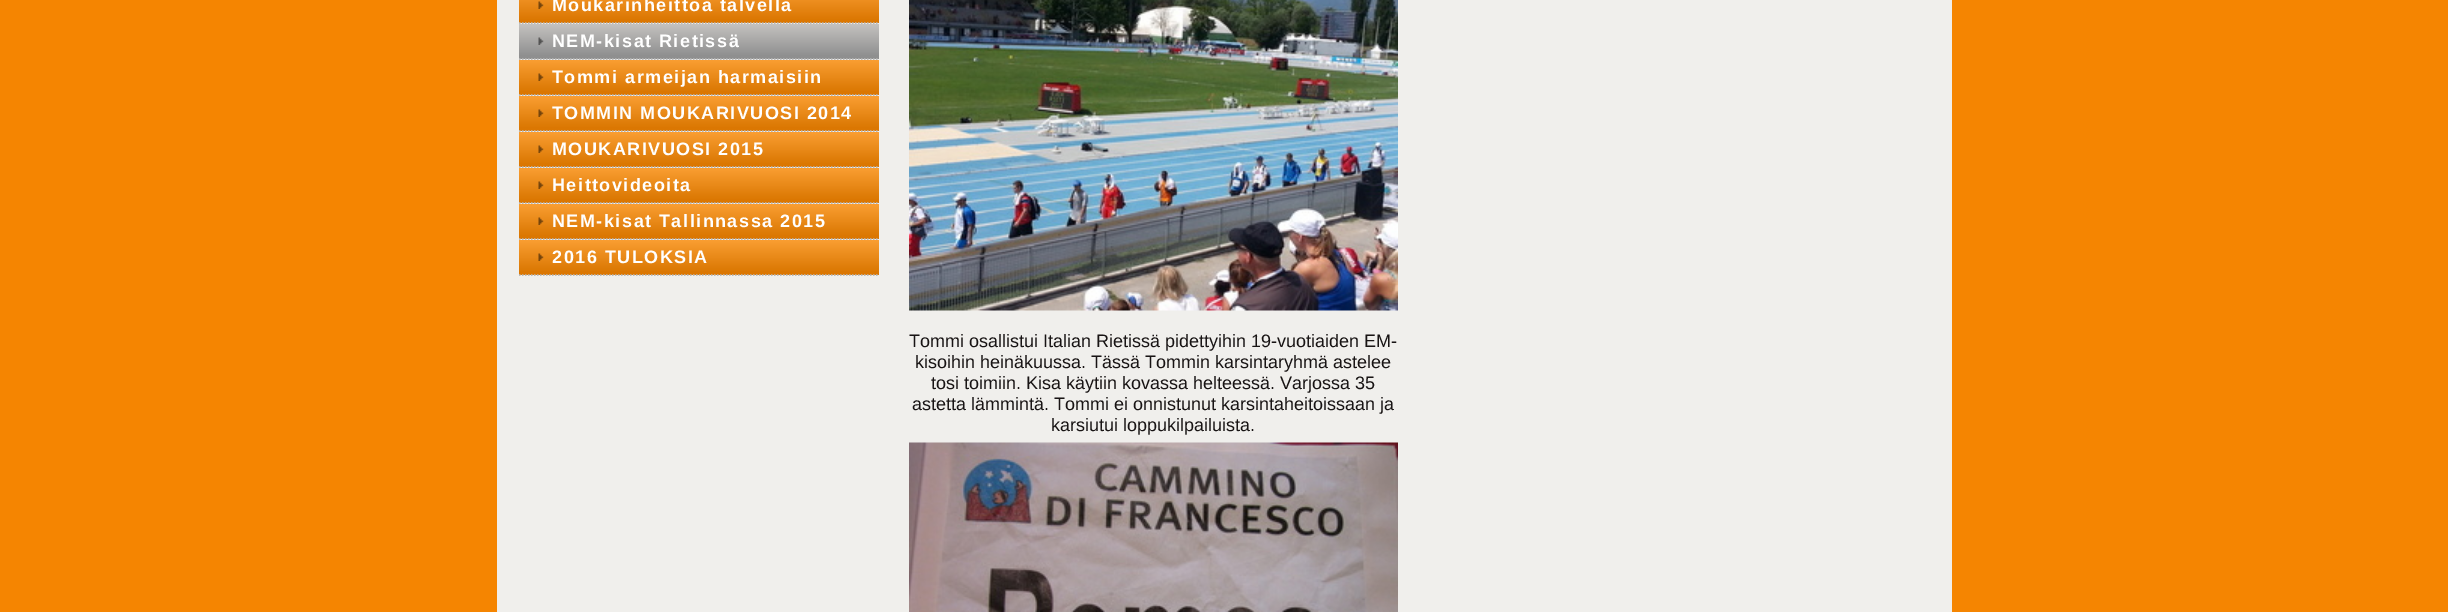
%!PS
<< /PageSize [2448 612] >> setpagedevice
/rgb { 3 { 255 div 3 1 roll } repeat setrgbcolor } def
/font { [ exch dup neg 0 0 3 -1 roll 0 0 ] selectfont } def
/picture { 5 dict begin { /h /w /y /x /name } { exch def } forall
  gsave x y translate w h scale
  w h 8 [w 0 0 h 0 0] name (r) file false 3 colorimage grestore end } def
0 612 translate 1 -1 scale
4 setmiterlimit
245 133 1 rgb
0 0 2448 612 rectfill
240 239 236 rgb
497 0 1455 612 rectfill
gsave 519 0 moveto 879 0 lineto 879 23 lineto 519 23 lineto closepath clip newpath
<< /ShadingType 2 /ColorSpace /DeviceRGB /Coords [699 -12 699 23] /Extend [true true] /Function << /FunctionType 3 /Domain [0 1] /Functions [<< /FunctionType 2 /Domain [0 1] /C0 [0.98 0.62 0.196] /C1 [0.859 0.467 0.008] /N 1 >> << /FunctionType 2 /Domain [0 1] /C0 [0.859 0.467 0.008] /C1 [0.859 0.467 0.008] /N 1 >>] /Bounds [0.91] /Encode [0 1 0 1] >> >> shfill grestore
186 186 186 rgb
1.5 setlinewidth
[1.5 1.5] 0 setdash
519 23 moveto 879 23 lineto stroke
(img/1.rgb) 538 1 6 8 picture
gsave 519 24 moveto 879 24 lineto 879 59 lineto 519 59 lineto closepath clip newpath
<< /ShadingType 2 /ColorSpace /DeviceRGB /Coords [699 24 699 59] /Extend [true true] /Function << /FunctionType 3 /Domain [0 1] /Functions [<< /FunctionType 2 /Domain [0 1] /C0 [0.769 0.761 0.753] /C1 [0.561 0.561 0.561] /N 1 >> << /FunctionType 2 /Domain [0 1] /C0 [0.561 0.561 0.561] /C1 [0.561 0.561 0.561] /N 1 >>] /Bounds [0.91] /Encode [0 1 0 1] >> >> shfill grestore
519 59 moveto 879 59 lineto stroke
(img/2.rgb) 538 37 6 8 picture
gsave 519 60 moveto 879 60 lineto 879 95 lineto 519 95 lineto closepath clip newpath
<< /ShadingType 2 /ColorSpace /DeviceRGB /Coords [699 60 699 95] /Extend [true true] /Function << /FunctionType 3 /Domain [0 1] /Functions [<< /FunctionType 2 /Domain [0 1] /C0 [0.98 0.62 0.196] /C1 [0.859 0.467 0.008] /N 1 >> << /FunctionType 2 /Domain [0 1] /C0 [0.859 0.467 0.008] /C1 [0.859 0.467 0.008] /N 1 >>] /Bounds [0.91] /Encode [0 1 0 1] >> >> shfill grestore
519 95 moveto 879 95 lineto stroke
(img/1.rgb) 538 73 6 8 picture
gsave 519 96 moveto 879 96 lineto 879 131 lineto 519 131 lineto closepath clip newpath
<< /ShadingType 2 /ColorSpace /DeviceRGB /Coords [699 96 699 131] /Extend [true true] /Function << /FunctionType 3 /Domain [0 1] /Functions [<< /FunctionType 2 /Domain [0 1] /C0 [0.98 0.62 0.196] /C1 [0.859 0.467 0.008] /N 1 >> << /FunctionType 2 /Domain [0 1] /C0 [0.859 0.467 0.008] /C1 [0.859 0.467 0.008] /N 1 >>] /Bounds [0.91] /Encode [0 1 0 1] >> >> shfill grestore
519 131 moveto 879 131 lineto stroke
(img/1.rgb) 538 109 6 8 picture
gsave 519 132 moveto 879 132 lineto 879 167 lineto 519 167 lineto closepath clip newpath
<< /ShadingType 2 /ColorSpace /DeviceRGB /Coords [699 132 699 167] /Extend [true true] /Function << /FunctionType 3 /Domain [0 1] /Functions [<< /FunctionType 2 /Domain [0 1] /C0 [0.98 0.62 0.196] /C1 [0.859 0.467 0.008] /N 1 >> << /FunctionType 2 /Domain [0 1] /C0 [0.859 0.467 0.008] /C1 [0.859 0.467 0.008] /N 1 >>] /Bounds [0.91] /Encode [0 1 0 1] >> >> shfill grestore
519 167 moveto 879 167 lineto stroke
(img/1.rgb) 538 145 6 8 picture
gsave 519 168 moveto 879 168 lineto 879 203 lineto 519 203 lineto closepath clip newpath
<< /ShadingType 2 /ColorSpace /DeviceRGB /Coords [699 168 699 203] /Extend [true true] /Function << /FunctionType 3 /Domain [0 1] /Functions [<< /FunctionType 2 /Domain [0 1] /C0 [0.98 0.62 0.196] /C1 [0.859 0.467 0.008] /N 1 >> << /FunctionType 2 /Domain [0 1] /C0 [0.859 0.467 0.008] /C1 [0.859 0.467 0.008] /N 1 >>] /Bounds [0.91] /Encode [0 1 0 1] >> >> shfill grestore
519 203 moveto 879 203 lineto stroke
(img/1.rgb) 538 181 6 8 picture
gsave 519 204 moveto 879 204 lineto 879 239 lineto 519 239 lineto closepath clip newpath
<< /ShadingType 2 /ColorSpace /DeviceRGB /Coords [699 204 699 239] /Extend [true true] /Function << /FunctionType 3 /Domain [0 1] /Functions [<< /FunctionType 2 /Domain [0 1] /C0 [0.98 0.62 0.196] /C1 [0.859 0.467 0.008] /N 1 >> << /FunctionType 2 /Domain [0 1] /C0 [0.859 0.467 0.008] /C1 [0.859 0.467 0.008] /N 1 >>] /Bounds [0.91] /Encode [0 1 0 1] >> >> shfill grestore
519 239 moveto 879 239 lineto stroke
(img/1.rgb) 538 217 6 8 picture
gsave 519 240 moveto 879 240 lineto 879 275 lineto 519 275 lineto closepath clip newpath
<< /ShadingType 2 /ColorSpace /DeviceRGB /Coords [699 240 699 275] /Extend [true true] /Function << /FunctionType 3 /Domain [0 1] /Functions [<< /FunctionType 2 /Domain [0 1] /C0 [0.98 0.62 0.196] /C1 [0.859 0.467 0.008] /N 1 >> << /FunctionType 2 /Domain [0 1] /C0 [0.859 0.467 0.008] /C1 [0.859 0.467 0.008] /N 1 >>] /Bounds [0.91] /Encode [0 1 0 1] >> >> shfill grestore
519 275 moveto 879 275 lineto stroke
(img/1.rgb) 538 253 6 8 picture
(img/3.rgb) 909 0 489 311 picture
(img/4.rgb) 909 442 489 170 picture
/LiberationSans-Bold 18 font
255 255 255 rgb
552 11 moveto 1.5 0 (Moukarinheittoa talvella) ashow
552 47 moveto 1.5 0 (NEM-kisat Rietissä) ashow
552 83 moveto 1.5 0 (Tommi armeijan harmaisiin) ashow
552 119 moveto 1.5 0 (TOMMIN MOUKARIVUOSI 2014) ashow
552 155 moveto 1.5 0 (MOUKARIVUOSI 2015) ashow
552 191 moveto 1.5 0 (Heittovideoita) ashow
552 227 moveto 1.5 0 (NEM-kisat Tallinnassa 2015) ashow
552 263 moveto 1.5 0 (2016 TULOKSIA) ashow
/LiberationSans-Regular 18 font
24 20 20 rgb
[
  [(Tommi osallistui Italian Rietissä pidettyihin 19-vuotiaiden EM-) 909 347]
  [(kisoihin heinäkuussa. Tässä Tommin karsintaryhmä astelee) 915 368]
  [(tosi toimiin. Kisa käytiin kovassa helteessä. Varjossa 35) 931 389]
  [(astetta lämmintä. Tommi ei onnistunut karsintaheitoissaan ja) 912 410]
  [(karsiutui loppukilpailuista.) 1051 431]
] { aload pop moveto show } forall
showpage
